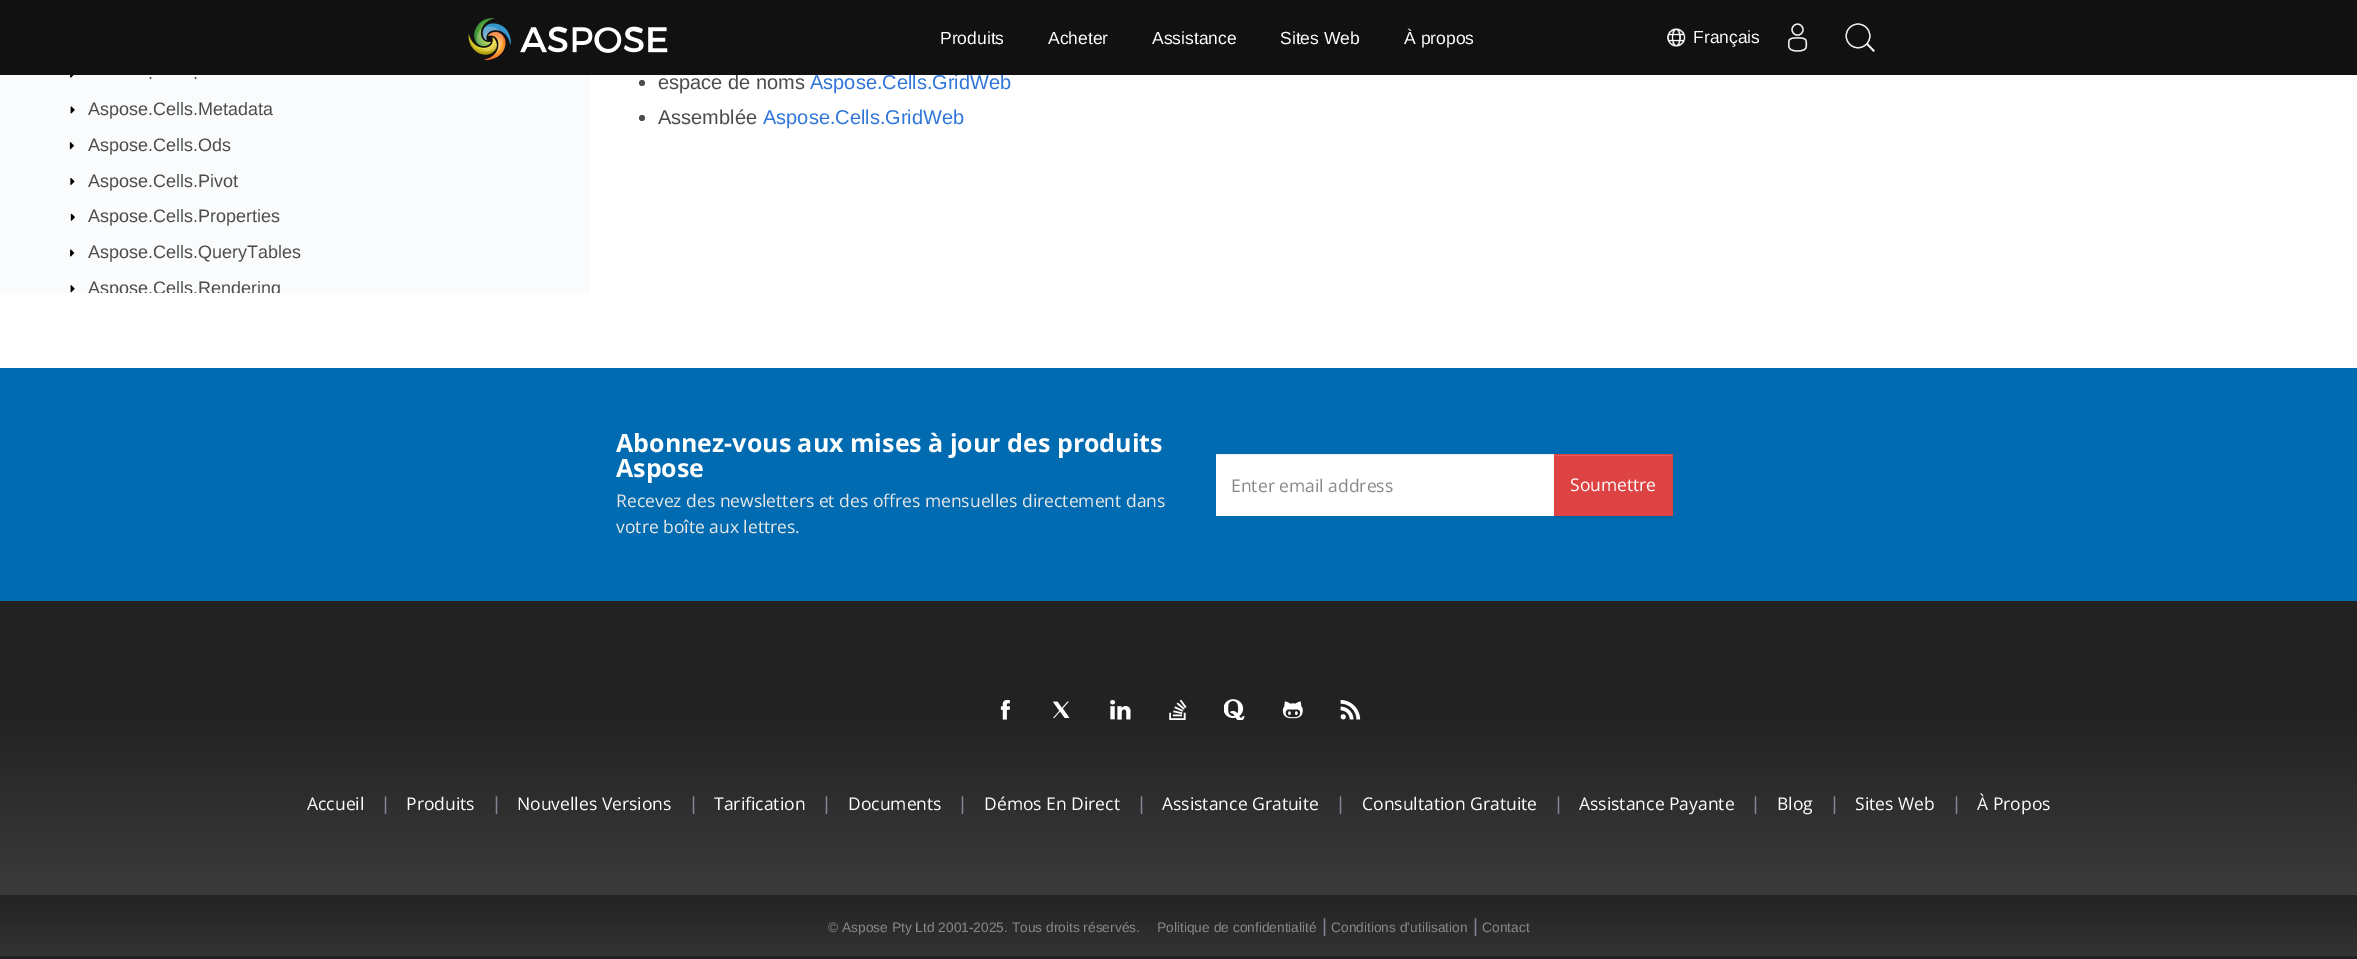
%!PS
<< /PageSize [2357 959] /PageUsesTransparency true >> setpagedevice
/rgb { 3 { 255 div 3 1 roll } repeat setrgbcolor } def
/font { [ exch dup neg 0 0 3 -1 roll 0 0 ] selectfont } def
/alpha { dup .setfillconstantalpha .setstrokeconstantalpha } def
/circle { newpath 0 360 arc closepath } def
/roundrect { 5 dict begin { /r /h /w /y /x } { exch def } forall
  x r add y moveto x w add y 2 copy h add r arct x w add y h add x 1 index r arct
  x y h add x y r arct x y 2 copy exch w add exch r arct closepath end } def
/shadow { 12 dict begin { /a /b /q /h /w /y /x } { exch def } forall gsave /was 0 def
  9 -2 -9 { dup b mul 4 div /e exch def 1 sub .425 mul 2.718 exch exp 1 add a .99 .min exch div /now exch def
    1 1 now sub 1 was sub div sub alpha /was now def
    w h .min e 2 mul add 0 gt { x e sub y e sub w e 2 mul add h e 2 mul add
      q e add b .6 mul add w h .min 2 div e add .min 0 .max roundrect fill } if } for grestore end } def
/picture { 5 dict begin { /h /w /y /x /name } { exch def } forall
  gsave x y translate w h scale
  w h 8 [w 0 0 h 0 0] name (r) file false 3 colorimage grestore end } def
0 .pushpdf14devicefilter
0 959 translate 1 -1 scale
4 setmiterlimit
255 255 255 rgb
0 0 2357 959 rectfill
249 251 252 rgb
0 75 590 218 rectfill
(img/5.rgb) 70 75 4 3 picture
(img/6.rgb) 70 106 5 8 picture
(img/7.rgb) 69 142 5 8 picture
(img/8.rgb) 70 178 5 8 picture
(img/9.rgb) 70 213 5 8 picture
(img/10.rgb) 70 249 5 8 picture
(img/11.rgb) 70 285 5 8 picture
76 76 76 rgb
642 83 3 circle fill
642 118 3 circle fill
[
  [0 368 2357 233 0 107 176]
  [1216 455 338 61 255 255 255]
  [1216 454 338 1 236 236 236]
] { aload pop rgb rectfill } forall
0 0 0 rgb
1554 455 119 63 0 0.5 0.07 shadow
220 67 66 rgb
1554 454 119 62 rectfill
225 95 94 rgb
1555 455 116 1 rectfill
gsave 0 601 moveto 2357 601 lineto 2357 895 lineto 0 895 lineto closepath clip newpath
<< /ShadingType 2 /ColorSpace /DeviceRGB /Coords [1179 601 1179 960] /Extend [true true] /Function << /FunctionType 3 /Domain [0 1] /Functions [<< /FunctionType 2 /Domain [0 1] /C0 [0.133 0.133 0.133] /C1 [0.133 0.133 0.133] /N 1 >> << /FunctionType 2 /Domain [0 1] /C0 [0.133 0.133 0.133] /C1 [0.267 0.267 0.267] /N 1 >>] /Bounds [0.3] /Encode [0 1 0 1] >> >> shfill grestore
(img/12.rgb) 1000 700 10 20 picture
(img/13.rgb) 1052 701 18 18 picture
(img/14.rgb) 1110 700 21 20 picture
(img/15.rgb) 1169 699 18 21 picture
(img/16.rgb) 1224 699 21 21 picture
(img/17.rgb) 1282 701 21 18 picture
(img/18.rgb) 1340 700 21 20 picture
gsave 0 895 moveto 2357 895 lineto 2357 956 lineto 0 956 lineto closepath clip newpath
<< /ShadingType 2 /ColorSpace /DeviceRGB /Coords [1179 895 1179 956] /Extend [true true] /Function << /FunctionType 2 /Domain [0 1] /C0 [0.141 0.137 0.137] /C1 [0.2 0.2 0.2] /N 1 >> >> shfill grestore
34 34 34 rgb
0 956 2357 3 rectfill
/LiberationSans-Regular 18 font
76 76 76 rgb
[
  [(.) 148 79]
  [(.) 193 79]
  [(Aspose.Cells.Metadata) 88 115]
  [(Aspose.Cells.Ods) 88 151]
  [(Aspose.Cells.Pivot) 88 187]
  [(Aspose.Cells.Properties) 88 222]
  [(Aspose.Cells.QueryTables) 88 258]
] { aload pop moveto show } forall
gsave
19 0 571 293 rectclip
88 294 moveto (Aspose.Cells.Rendering) show
grestore
/LiberationSans-Regular 20 font
658 89 moveto (espace de noms) show
49 118 217 rgb
810 89 moveto (Aspose.Cells.GridWeb) show
17 17 17 rgb
0 0 2357 75 rectfill
/LiberationSans-Regular 17.5 font
254 254 254 rgb
1693 43 moveto (Français) show
(img/2.rgb) 1667 28 19 19 picture
(img/3.rgb) 1787 23 21 29 picture
[
  [(À propos) 1404 44]
  [(Sites Web) 1280 44]
  [(Assistance) 1152 44]
  [(Acheter) 1048 44]
  [(Produits) 940 44]
] { aload pop moveto show } forall
(img/4.rgb) 1845 23 30 29 picture
(img/1.rgb) 468 18 200 43 picture
/LiberationSans-Regular 20 font
76 76 76 rgb
658 124 moveto (Assemblée) show
49 118 217 rgb
763 124 moveto (Aspose.Cells.GridWeb) show
/OpenSans-Bold 25 font
254 254 254 rgb
616 452 moveto (Abonnez-vous aux mises à jour des produits) show
616 477 moveto (Aspose) show
/OpenSans-Regular 17.5 font
232 232 232 rgb
616 507 moveto (Recevez des newsletters et des offres mensuelles directement dans) show
616 533 moveto (votre boîte aux lettres.) show
136 136 136 rgb
1231 492 moveto (Enter email address) show
254 254 254 rgb
1570 491 moveto (Soumettre) show
307 810 moveto (Accueil) show
/LiberationSans-Regular 19 font
129 134 146 rgb
383 810 moveto (|) show
/OpenSans-Regular 17.5 font
254 254 254 rgb
406 810 moveto (Produits) show
/LiberationSans-Regular 19 font
129 134 146 rgb
494 810 moveto (|) show
/OpenSans-Regular 17.5 font
254 254 254 rgb
517 810 moveto (Nouvelles Versions) show
/LiberationSans-Regular 19 font
129 134 146 rgb
691 810 moveto (|) show
/OpenSans-Regular 17.5 font
254 254 254 rgb
714 810 moveto (Tarification) show
/LiberationSans-Regular 19 font
129 134 146 rgb
824 810 moveto (|) show
/OpenSans-Regular 17.5 font
254 254 254 rgb
848 810 moveto (Documents) show
/LiberationSans-Regular 19 font
129 134 146 rgb
960 810 moveto (|) show
/OpenSans-Regular 17.5 font
254 254 254 rgb
984 810 moveto (Démos En Direct) show
/LiberationSans-Regular 19 font
129 134 146 rgb
1139 810 moveto (|) show
/OpenSans-Regular 17.5 font
254 254 254 rgb
1162 810 moveto (Assistance Gratuite) show
/LiberationSans-Regular 19 font
129 134 146 rgb
1338 810 moveto (|) show
/OpenSans-Regular 17.5 font
254 254 254 rgb
1362 810 moveto (Consultation Gratuite) show
/LiberationSans-Regular 19 font
129 134 146 rgb
1556 810 moveto (|) show
/OpenSans-Regular 17.5 font
254 254 254 rgb
1579 810 moveto (Assistance Payante) show
/LiberationSans-Regular 19 font
129 134 146 rgb
1753 810 moveto (|) show
/OpenSans-Regular 17.5 font
254 254 254 rgb
1777 810 moveto (Blog) show
/LiberationSans-Regular 19 font
129 134 146 rgb
1832 810 moveto (|) show
/OpenSans-Regular 17.5 font
254 254 254 rgb
1855 810 moveto (Sites Web) show
/LiberationSans-Regular 19 font
129 134 146 rgb
1954 810 moveto (|) show
/OpenSans-Regular 17.5 font
254 254 254 rgb
1977 810 moveto (À Propos) show
/LiberationSans-Regular 13.75 font
136 136 136 rgb
828 932 moveto (© Aspose Pty Ltd 2001-2025. Tous droits réservés.) show
1157 932 moveto (Politique de confidentialité) show
/LiberationSans-Regular 19 font
129 134 146 rgb
1322 932 moveto (|) show
/LiberationSans-Regular 13.75 font
136 136 136 rgb
1331 932 moveto (Conditions d'utilisation) show
/LiberationSans-Regular 19 font
129 134 146 rgb
1473 932 moveto (|) show
/LiberationSans-Regular 13.75 font
136 136 136 rgb
1482 932 moveto (Contact) show
.poppdf14devicefilter showpage
